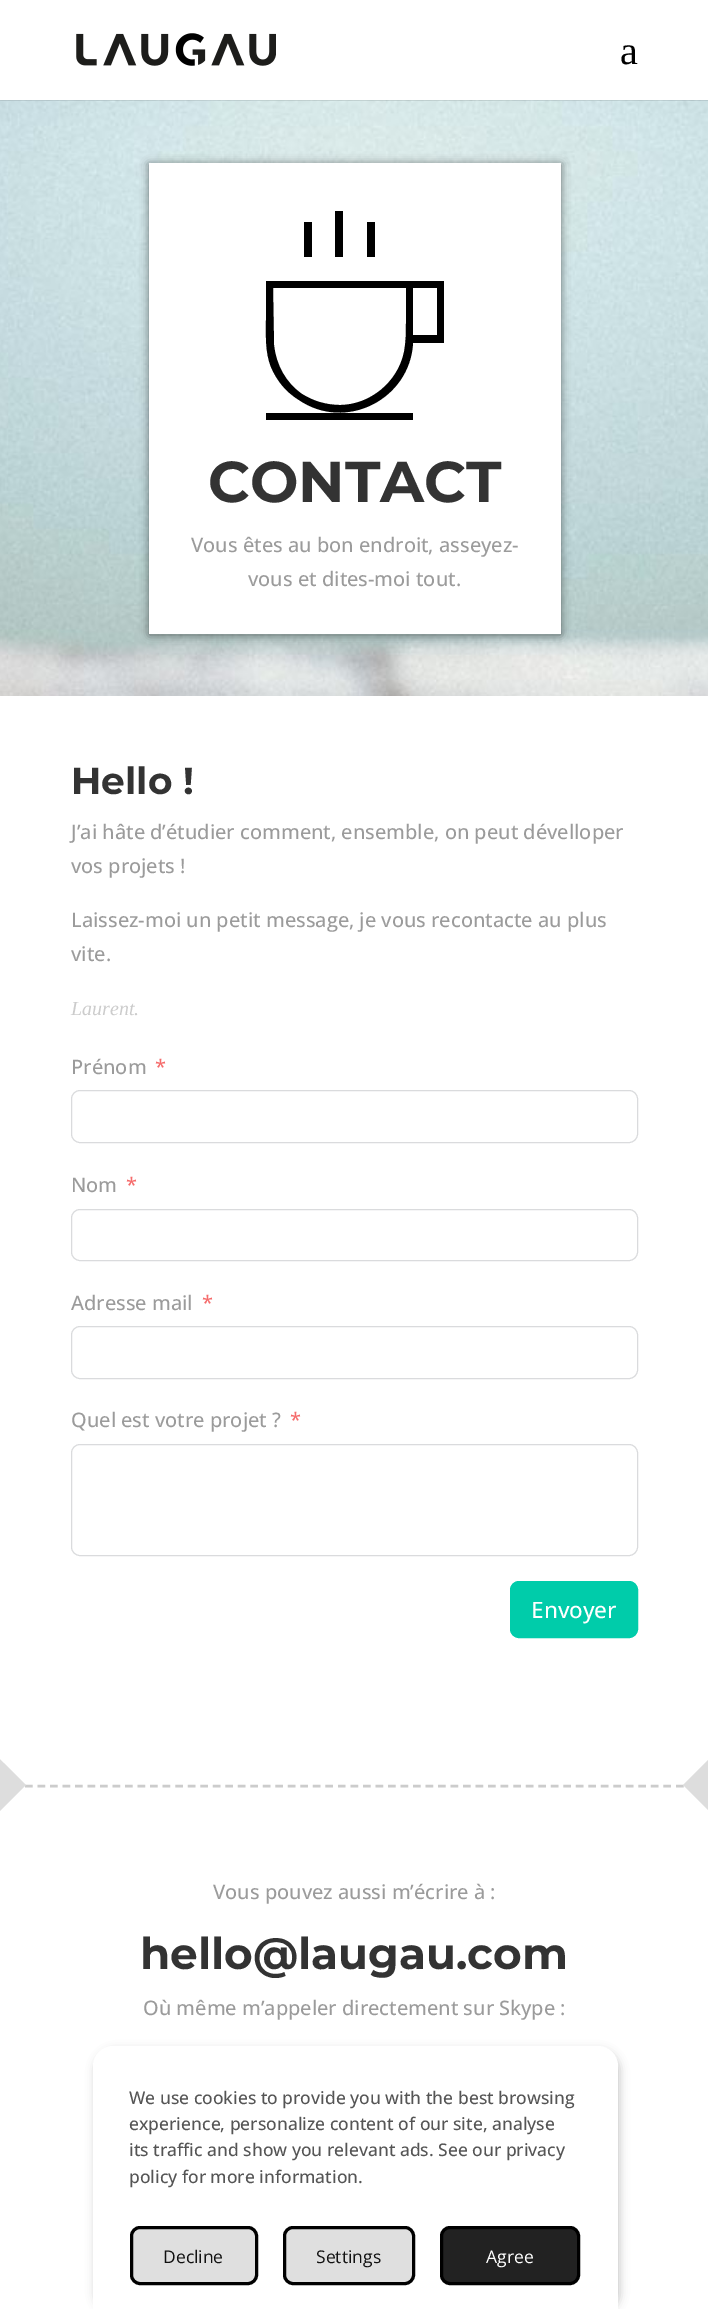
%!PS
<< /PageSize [708 2309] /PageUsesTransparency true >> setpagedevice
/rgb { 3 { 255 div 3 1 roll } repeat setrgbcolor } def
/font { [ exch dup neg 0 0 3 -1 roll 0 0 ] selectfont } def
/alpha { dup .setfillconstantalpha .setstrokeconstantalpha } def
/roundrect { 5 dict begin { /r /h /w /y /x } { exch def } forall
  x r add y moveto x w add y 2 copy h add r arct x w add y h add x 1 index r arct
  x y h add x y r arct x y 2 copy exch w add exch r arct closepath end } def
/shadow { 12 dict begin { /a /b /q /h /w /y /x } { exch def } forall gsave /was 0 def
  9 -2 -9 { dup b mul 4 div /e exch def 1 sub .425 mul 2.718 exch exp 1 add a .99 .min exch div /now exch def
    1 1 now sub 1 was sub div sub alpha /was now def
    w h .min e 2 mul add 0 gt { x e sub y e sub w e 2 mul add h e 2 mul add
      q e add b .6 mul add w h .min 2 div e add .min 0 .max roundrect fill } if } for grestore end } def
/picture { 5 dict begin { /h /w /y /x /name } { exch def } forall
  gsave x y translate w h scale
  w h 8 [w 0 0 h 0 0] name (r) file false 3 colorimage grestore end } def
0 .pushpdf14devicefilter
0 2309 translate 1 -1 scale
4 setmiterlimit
255 255 255 rgb
0 0 708 2309 rectfill
(img/2.rgb) 0 100 708 596 picture
0.1 alpha
0 0 0 rgb
0 100 moveto 0 101 lineto 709 101 lineto 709 1 lineto 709 100 lineto closepath fill
1 alpha
(img/1.rgb) 76 33 200 33 picture
149 164 412 471 0 4.5 0.5 shadow
255 255 255 rgb
149 163 412 471 rectfill
0 0 0 rgb
335 211 moveto 335 257 lineto 343 257 lineto 343 211 lineto closepath 304 222 moveto 304 257 lineto 312 257 lineto 312 222 lineto closepath 367 222 moveto 367 257 lineto 375 257 lineto 375 222 lineto closepath 413 343 moveto 444 343 lineto 444 281 lineto 266 281 lineto 266 319 lineto 266 336 265 352 271 367 curveto 277 381 286 392 299 400 curveto 346 432 410 399 413 343 curveto closepath 340 405 moveto 326 405 313 401 302 394 curveto 286 383 276 365 274 345 curveto 273 288 lineto 406 288 lineto 406 322 lineto 406 332 406 342 404 352 curveto 398 382 370 405 340 405 curveto closepath 413 335 moveto 413 288 lineto 437 288 lineto 437 335 lineto closepath 266 413 moveto 266 420 lineto 413 420 lineto 413 413 lineto closepath eofill
218 219 221 rgb
71.5 1090.5 566 52 8.5 roundrect stroke
71.5 1209.5 566 51 8.5 roundrect stroke
71.5 1326.5 566 52 8.5 roundrect stroke
71.5 1444.5 566 111 8.5 roundrect stroke
0 204 170 rgb
510.5 1581.5 127 56 8.5 roundrect gsave fill grestore
stroke
204 204 204 rgb
2.5 setlinewidth
[7.5 5.02] 0 setdash
0 1786 moveto 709 1786 lineto stroke
221 221 221 rgb
-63 1697 moveto 26 1785 lineto -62 1873 lineto -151 1785 lineto closepath fill
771 1697 moveto 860 1785 lineto 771 1873 lineto 683 1785 lineto closepath fill
0 0 0 rgb
95 2050 525 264 20 4.5 0.2 shadow
255 255 255 rgb
113 2046 moveto 598 2046 lineto 609 2046 618 2055 618 2066 curveto 618 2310 lineto 93 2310 lineto 93 2066 lineto 93 2055 102 2046 113 2046 curveto closepath fill
223 223 223 rgb
131.5 2227.5 125 56 8.5 roundrect gsave fill grestore
0 0 0 rgb
3 setlinewidth
[] 0 setdash
stroke
223 223 223 rgb
284.5 2227.5 129 56 8.5 roundrect gsave fill grestore
0 0 0 rgb
stroke
34 34 34 rgb
441.5 2227.5 137 56 8.5 roundrect gsave fill grestore
0 0 0 rgb
stroke
/LiberationSerif-Regular 40 font
620 64 moveto (a) show
/Montserrat-Bold 57.5 font
51 51 51 rgb
208 502 moveto (CONTACT) show
/OpenSans-Medium 20 font
155 155 155 rgb
191 552 moveto (Vous êtes au bon endroit, asseyez-) show
248 586 moveto (vous et dites-moi tout.) show
/Montserrat-Bold 37.5 font
51 51 51 rgb
71 794 moveto (Hello !) show
/OpenSans-Medium 20 font
155 155 155 rgb
[
  [(J’ai hâte d’étudier comment, ensemble, on peut dévelloper) 71 839]
  [(vos projets !) 71 873]
  [(Laissez-moi un petit message, je vous recontacte au plus) 71 927]
  [(vite.) 71 961]
] { aload pop moveto show } forall
/LiberationSerif-Italic 20 font
204 204 204 rgb
71 1015 moveto (Laurent.) show
/OpenSans-Medium 20 font
155 155 155 rgb
71 1074 moveto (Prénom) show
245 108 108 rgb
155 1074 moveto (*) show
155 155 155 rgb
71 1192 moveto (Nom) show
245 108 108 rgb
126 1192 moveto (*) show
155 155 155 rgb
71 1310 moveto (Adresse mail) show
245 108 108 rgb
202 1310 moveto (*) show
155 155 155 rgb
71 1427 moveto (Quel est votre projet ?) show
245 108 108 rgb
290 1427 moveto (*) show
/OpenSans-Medium 22.5 font
255 255 255 rgb
531 1618 moveto (Envoyer) show
/OpenSans-Medium 20 font
155 155 155 rgb
213 1899 moveto (Vous pouvez aussi m’écrire à :) show
/Montserrat-Bold 43.75 font
51 51 51 rgb
140 1969 moveto (hello@laugau.com) show
/OpenSans-Medium 20 font
155 155 155 rgb
143 2015 moveto (Où même m’appeler directement sur Skype :) show
/OpenSans-Medium 17.5 font
85 85 85 rgb
[
  [(We use cookies to provide you with the best browsing) 129 2104]
  [(experience, personalize content of our site, analyse) 129 2130]
  [(its traffic and show you relevant ads. See our privacy) 129 2156]
  [(policy for more information.) 129 2183]
] { aload pop moveto show } forall
/OpenSans-Regular 17.5 font
17 17 17 rgb
163 2263 moveto (Decline) show
316 2263 moveto (Settings) show
255 255 255 rgb
486 2263 moveto (Agree) show
.poppdf14devicefilter showpage
